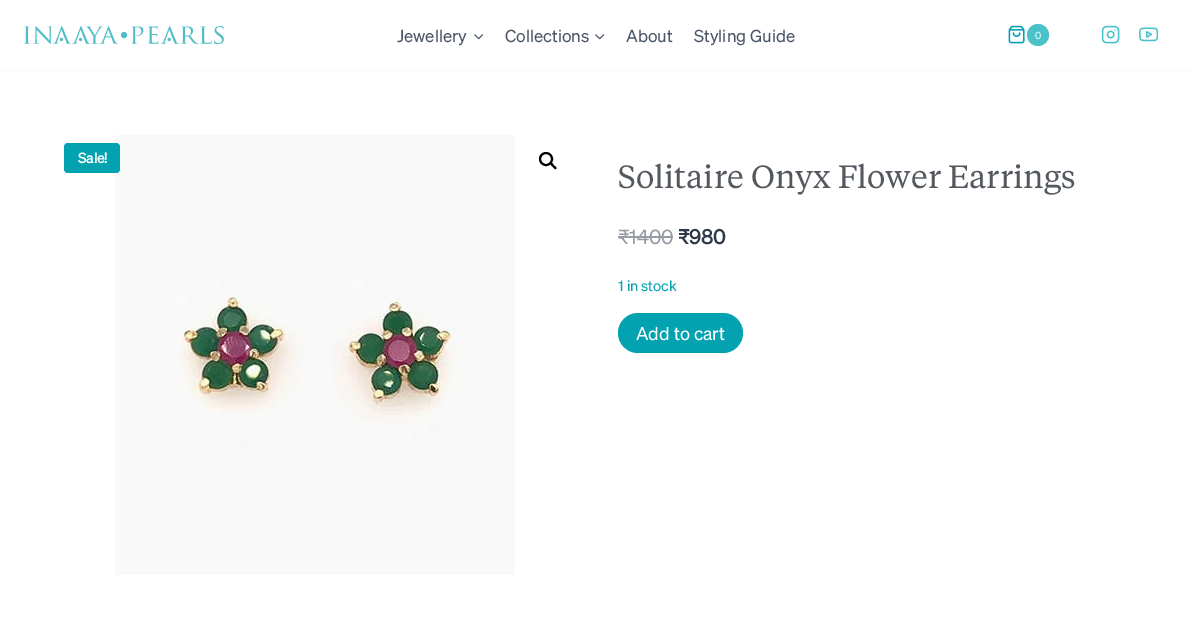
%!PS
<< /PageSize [1192 628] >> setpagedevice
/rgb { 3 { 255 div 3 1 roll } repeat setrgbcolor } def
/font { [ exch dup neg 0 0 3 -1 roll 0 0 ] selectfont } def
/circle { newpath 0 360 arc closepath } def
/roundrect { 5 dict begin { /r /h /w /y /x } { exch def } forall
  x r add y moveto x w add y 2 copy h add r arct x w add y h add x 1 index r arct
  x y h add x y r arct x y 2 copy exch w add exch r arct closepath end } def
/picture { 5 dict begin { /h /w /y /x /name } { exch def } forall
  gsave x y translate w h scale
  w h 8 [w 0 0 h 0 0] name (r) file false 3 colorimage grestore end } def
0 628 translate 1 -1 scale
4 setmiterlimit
255 255 255 rgb
0 0 1192 628 rectfill
247 250 252 rgb
0 70 1192 1 rectfill
(img/1.rgb) 24 26 200 18 picture
(img/2.rgb) 474 34 10 6 picture
(img/2.rgb) 595 34 10 6 picture
(img/3.rgb) 1008 25 17 19 picture
75 194 200 rgb
1038 35 11 circle fill
(img/4.rgb) 1101 25 19 19 picture
(img/5.rgb) 1139 27 19 15 picture
(img/6.rgb) 115 135 400 440 picture
2 162 176 rgb
64 143 56 30 4 roundrect fill
0 0 0 rgb
2 setlinewidth
546 159 6 circle stroke
550.5 163 moveto 552 162 553.5 164.5 554 165.5 curveto 554.5 166 557.5 167.5 556 169 curveto 555 170 553.5 167.5 552.5 166.5 curveto 552 166 549.5 164.5 550.5 163 curveto closepath fill
150 155 164 rgb
618 236 55 2 rectfill
2 162 176 rgb
618 313 125 40 20 roundrect fill
/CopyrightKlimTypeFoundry-Regular 17 font
74 85 104 rgb
[
  [(Jewellery) 397 42]
  [(Collections) 505 42]
  [(About) 626 42]
  [(Styling Guide) 694 42]
] { aload pop moveto show } forall
/CopyrightKlimTypeFoundry-Regular 10 font
255 255 255 rgb
1035 39 moveto (0) show
/CopyrightKlimTypeFoundry-Bold 14 font
78 163 moveto (Sale!) show
/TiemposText-Regular 32 font
84 89 95 rgb
618 188 moveto (Solitaire Onyx Flower Earrings) show
/CopyrightKlimTypeFoundry-Regular 20 font
150 155 164 rgb
618 244 moveto (₹1400) show
/CopyrightKlimTypeFoundry-Bold 20 font
45 55 72 rgb
678 244 moveto (₹980) show
/CopyrightKlimTypeFoundry-Regular 14.5 font
2 162 176 rgb
618 291 moveto (1 in stock) show
/CopyrightKlimTypeFoundry-Regular 18 font
255 255 255 rgb
636 340 moveto (Add to cart) show
showpage
